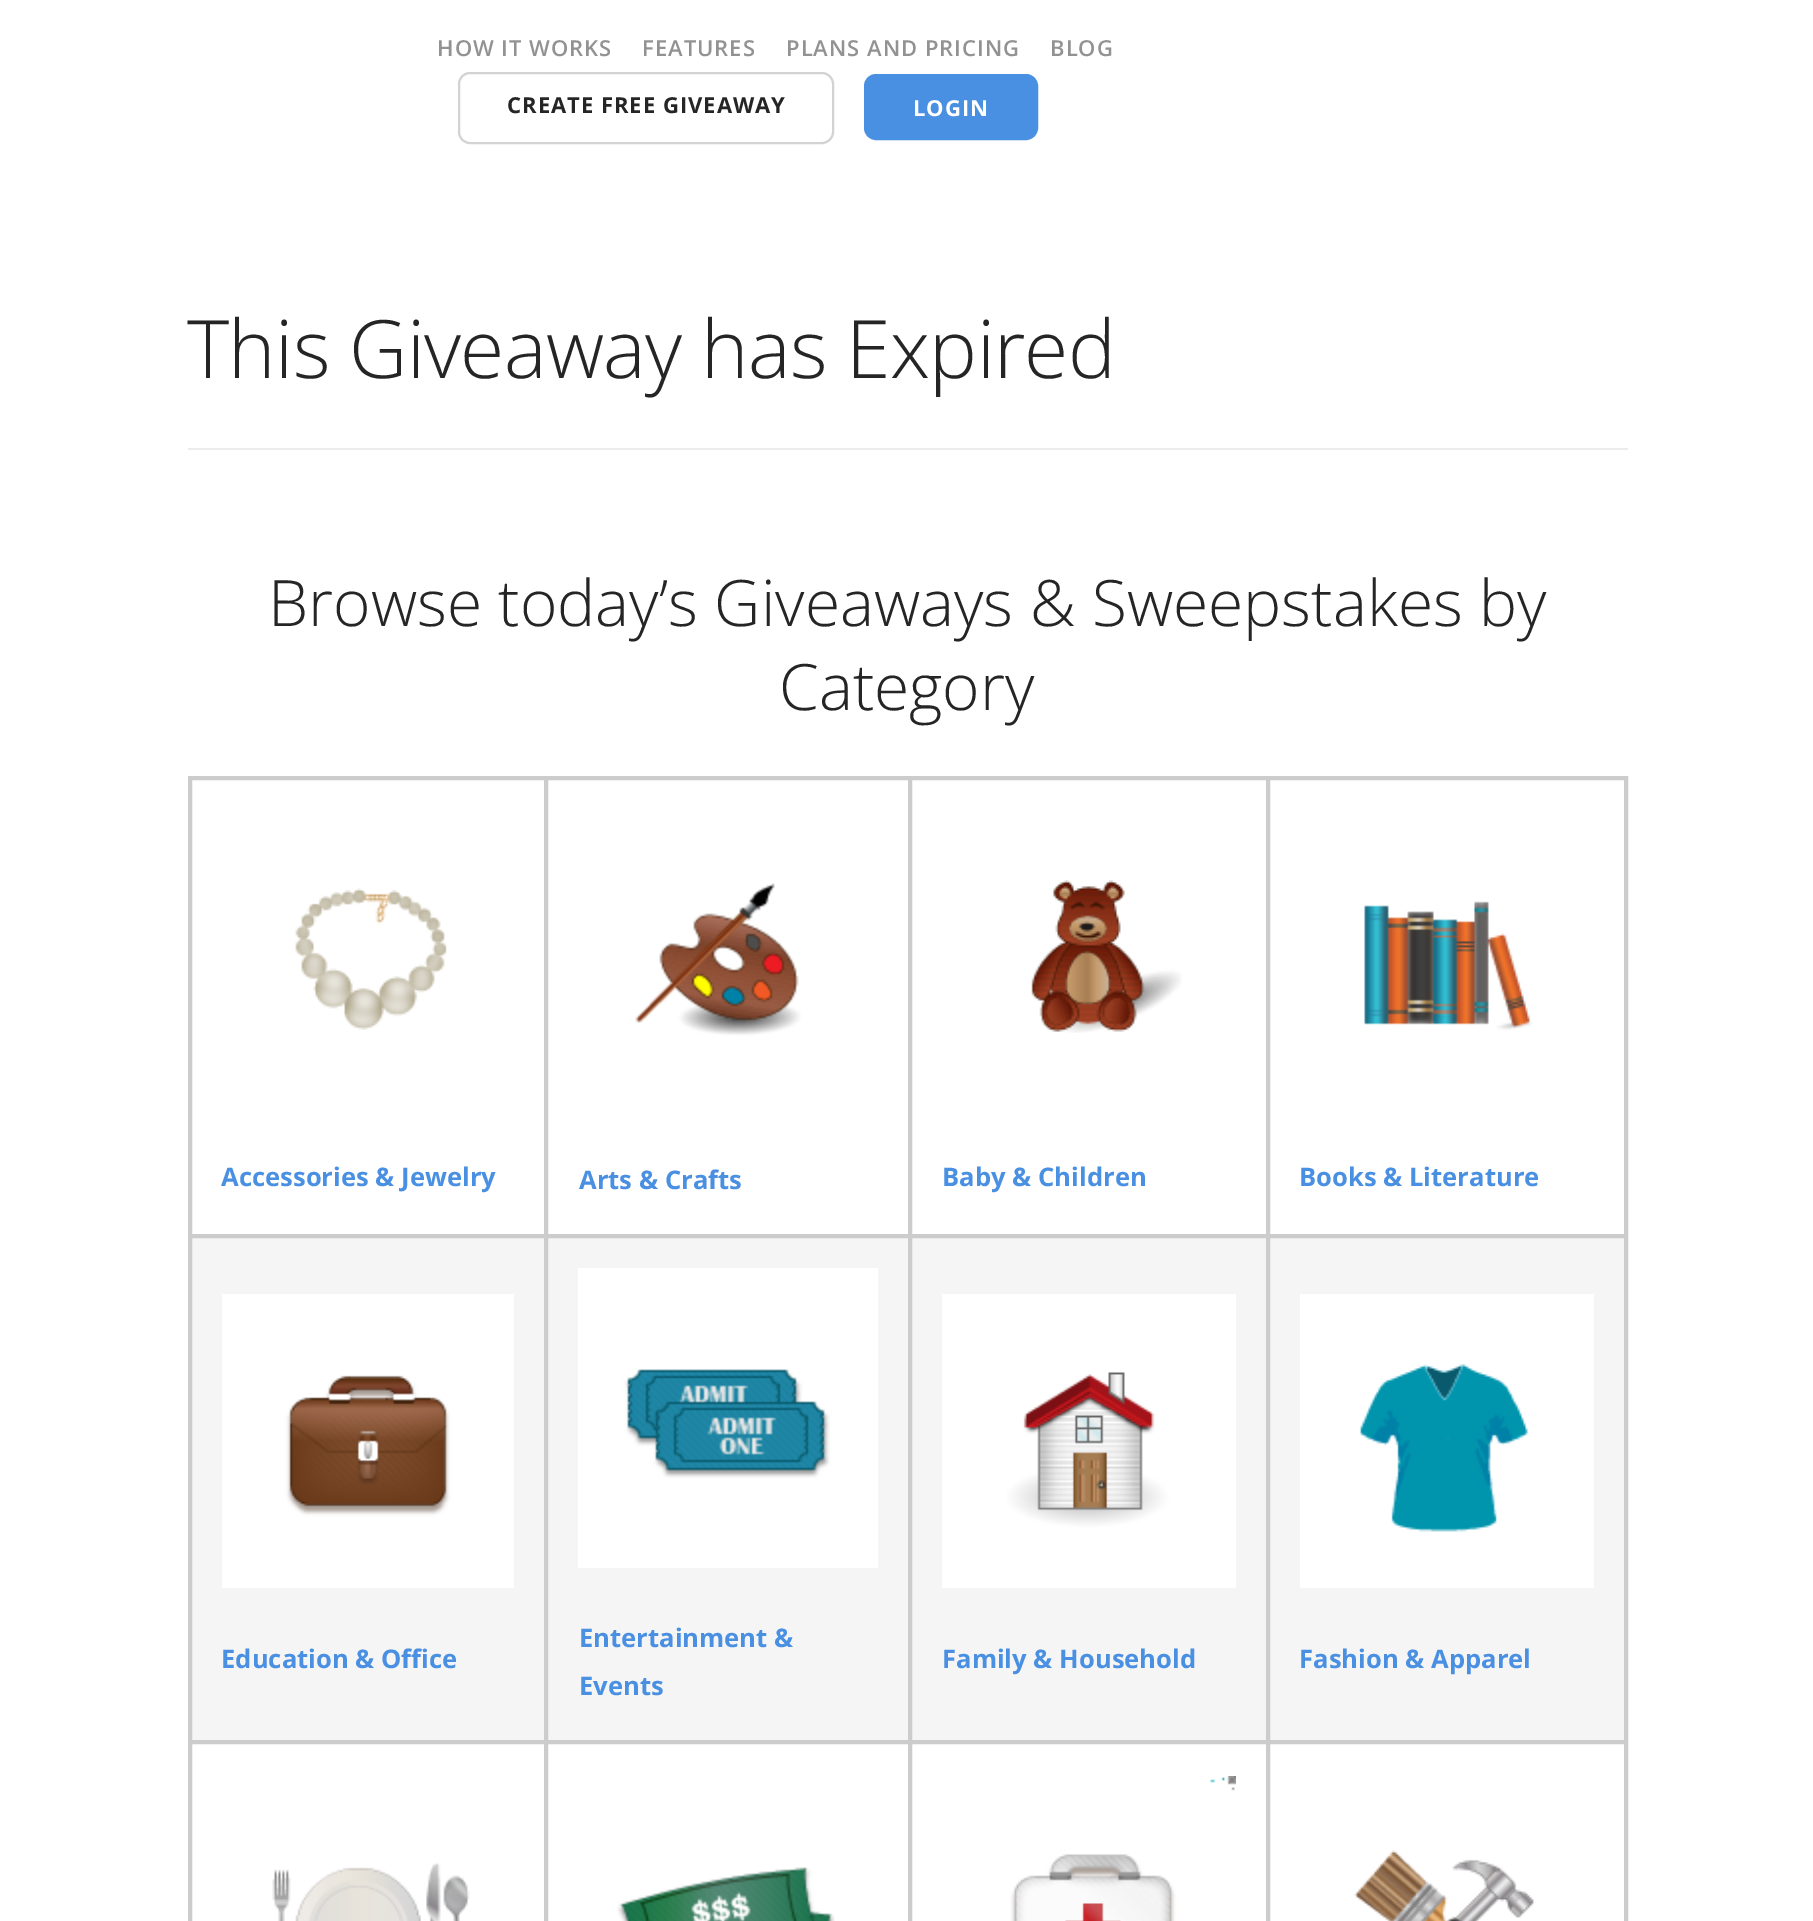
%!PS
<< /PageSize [1813 1921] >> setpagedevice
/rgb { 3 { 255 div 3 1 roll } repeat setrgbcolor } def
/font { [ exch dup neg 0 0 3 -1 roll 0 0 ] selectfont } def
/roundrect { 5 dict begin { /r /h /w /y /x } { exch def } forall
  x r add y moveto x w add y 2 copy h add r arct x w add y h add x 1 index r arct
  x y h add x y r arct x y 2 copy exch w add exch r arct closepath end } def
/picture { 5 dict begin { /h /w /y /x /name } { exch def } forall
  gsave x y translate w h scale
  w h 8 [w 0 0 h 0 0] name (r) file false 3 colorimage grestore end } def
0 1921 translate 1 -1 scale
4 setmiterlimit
255 255 255 rgb
0 0 1813 1921 rectfill
211 211 211 rgb
2 setlinewidth
459 73 374 70 11 roundrect stroke
74 144 226 rgb
865 75 172 64 11 roundrect gsave fill grestore
stroke
236 236 236 rgb
188 448 1440 2 rectfill
204 204 204 rgb
189 777 1438 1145 rectstroke
191 779 354 456 rectstroke
(img/1.rgb) 295 888 152 142 picture
547 779 362 456 rectstroke
(img/2.rgb) 635 883 166 153 picture
911 779 356 456 rectstroke
(img/3.rgb) 1031 880 151 153 picture
1269 779 356 456 rectstroke
(img/4.rgb) 1364 901 169 129 picture
245 245 245 rgb
192 1238 1432 502 rectfill
204 204 204 rgb
191 1237 354 504 rectstroke
(img/5.rgb) 222 1294 292 294 picture
547 1237 362 504 rectstroke
(img/6.rgb) 578 1268 300 300 picture
911 1237 356 504 rectstroke
(img/7.rgb) 942 1294 294 294 picture
1269 1237 356 504 rectstroke
(img/8.rgb) 1300 1294 294 294 picture
191 1743 354 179 rectstroke
(img/9.rgb) 272 1862 198 59 picture
547 1743 362 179 rectstroke
(img/10.rgb) 617 1867 218 54 picture
911 1743 356 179 rectstroke
(img/11.rgb) 1010 1776 226 145 picture
1269 1743 356 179 rectstroke
(img/12.rgb) 1354 1850 180 71 picture
/OpenSans-SemiBold 22 font
146 146 146 rgb
437 56 moveto 1 0 (HOW IT WORKS) ashow
642 56 moveto 1 0 (FEATURES) ashow
786 56 moveto 1 0 (PLANS AND PRICING) ashow
1050 56 moveto 1 0 (BLOG) ashow
/OpenSans-Bold 22 font
37 37 37 rgb
507 113 moveto 1 0 (CREATE FREE GIVEAWAY) ashow
255 255 255 rgb
913 116 moveto 1 0 (LOGIN) ashow
/OpenSans-Light 80.5 font
37 37 37 rgb
187 378 moveto -0.8 0 (This Giveaway has Expired) ashow
/OpenSans-Light 64 font
268 626 moveto (Browse today’s Giveaways & Sweepstakes by) show
779 710 moveto (Category) show
/OpenSans-Bold 25.6 font
74 144 226 rgb
[
  [(Accessories & Jewelry) 221 1186]
  [(Arts & Crafts) 579 1189]
  [(Baby & Children) 942 1186]
  [(Books & Literature) 1299 1186]
  [(Education & Office) 221 1668]
  [(Entertainment &) 579 1647]
  [(Events) 579 1695]
  [(Family & Household) 942 1668]
  [(Fashion & Apparel) 1299 1668]
] { aload pop moveto show } forall
showpage
